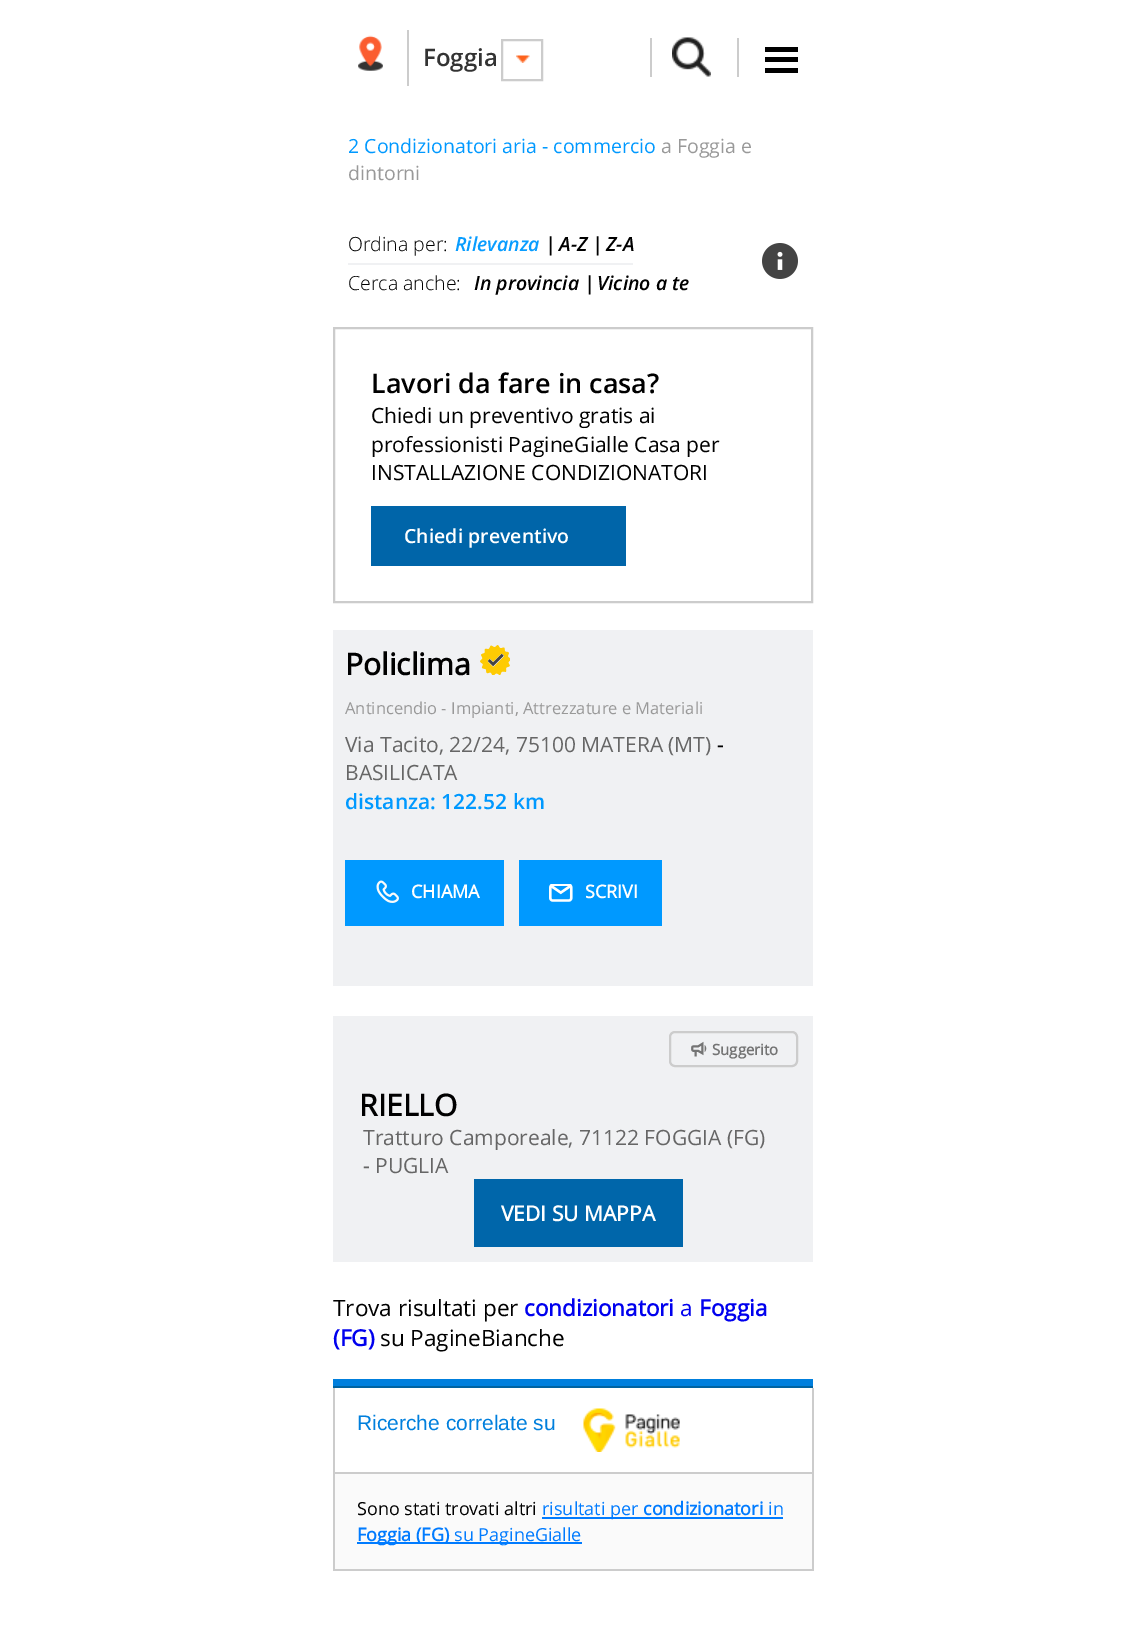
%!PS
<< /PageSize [1146 1647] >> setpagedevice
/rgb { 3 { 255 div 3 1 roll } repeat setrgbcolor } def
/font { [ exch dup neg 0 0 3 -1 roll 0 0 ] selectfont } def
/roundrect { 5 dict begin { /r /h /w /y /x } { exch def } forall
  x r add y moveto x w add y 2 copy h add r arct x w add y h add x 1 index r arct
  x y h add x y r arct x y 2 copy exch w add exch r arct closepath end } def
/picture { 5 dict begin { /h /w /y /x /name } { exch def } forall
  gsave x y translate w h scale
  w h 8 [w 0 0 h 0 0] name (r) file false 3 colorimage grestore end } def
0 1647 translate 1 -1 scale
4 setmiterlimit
255 255 255 rgb
0 0 1146 1647 rectfill
204 204 204 rgb
407 30 2 56 rectfill
(img/1.rgb) 358 35 25 36 picture
2 setlinewidth
502 40 40 40 rectstroke
(img/2.rgb) 516 55 14 8 picture
(img/3.rgb) 672 37 39 40 picture
[
  [650 38 2 39 204 204 204]
  [737 38 2 39 204 204 204]
  [765 47 33 5 0 0 0]
  [765 57 33 5 0 0 0]
  [765 68 33 5 0 0 0]
  [348 263 285 2 240 241 243]
] { aload pop rgb rectfill } forall
(img/4.rgb) 762 243 36 36 picture
204 204 204 rgb
334 328 478 274 rectstroke
0 101 169 rgb
371 506 255 60 rectfill
240 241 243 rgb
333 630 480 356 rectfill
(img/5.rgb) 480 645 30 30 picture
0 153 255 rgb
345 860 159 66 rectfill
(img/6.rgb) 376 880 23 23 picture
519 860 143 66 rectfill
(img/7.rgb) 549 884 24 18 picture
240 241 243 rgb
333 1016 480 246 rectfill
204 204 204 rgb
670 1032 127 34 5 roundrect stroke
(img/8.rgb) 691 1041 16 16 picture
[
  [474 1179 209 68 0 102 170]
  [335 1474 477 95 250 250 250]
  [333 1379 480 7 0 127 221]
  [333 1386 480 2 0 99 161]
  [812 1388 2 183 204 204 204]
  [333 1569 480 2 204 204 204]
  [333 1388 2 183 204 204 204]
  [335 1472 477 2 204 204 204]
] { aload pop rgb rectfill } forall
(img/9.rgb) 583 1408 97 44 picture
0 123 255 rgb
542 1517 241 2 rectfill
357 1542 225 2 rectfill
/OpenSans-SemiBold 24 font
51 51 51 rgb
423 66 moveto (Foggia) show
/OpenSans-Regular 19.5 font
0 153 255 rgb
348 153 moveto (2 Condizionatori aria - commercio) show
153 153 153 rgb
661 153 moveto (a Foggia e) show
348 180 moveto (dintorni) show
/OpenSans-Light 19.5 font
0 0 0 rgb
348 251 moveto (Ordina per:) show
/OpenSans-SemiBoldItalic 19.5 font
9 157 255 rgb
455 251 moveto (Rilevanza) show
0 0 0 rgb
[
  [(|) 545 251]
  [(A-Z |) 559 251]
  [(Z-A) 606 251]
] { aload pop moveto show } forall
/OpenSans-Light 19.5 font
348 290 moveto (Cerca anche:) show
/OpenSans-SemiBoldItalic 19.5 font
474 290 moveto (In provincia |) show
597 290 moveto (Vicino a te) show
/OpenSans-SemiBold 27 font
371 393 moveto (Lavori da fare in casa?) show
/OpenSans-Regular 21 font
[
  [(Chiedi un preventivo gratis ai) 371 423]
  [(professionisti PagineGialle Casa per) 371 452]
  [(INSTALLAZIONE CONDIZIONATORI) 371 480]
] { aload pop moveto show } forall
/OpenSans-SemiBold 19.5 font
255 255 255 rgb
404 543 moveto (Chiedi preventivo) show
/OpenSans-Bold 30 font
0 0 0 rgb
345 675 moveto (Policlima) show
/OpenSans-Regular 16.5 font
153 153 153 rgb
345 714 moveto (Antincendio - Impianti, Attrezzature e Materiali) show
/OpenSans-Regular 21 font
102 102 102 rgb
345 752 moveto (Via Tacito, 22/24, 75100 MATERA \(MT\)) show
0 0 0 rgb
717 752 moveto (-) show
102 102 102 rgb
345 780 moveto (BASILICATA) show
/OpenSans-SemiBold 21 font
0 153 255 rgb
345 809 moveto (distanza: 122.52 km) show
/OpenSans-Bold 18 font
255 255 255 rgb
411 898 moveto (CHIAMA) show
585 898 moveto (SCRIVI) show
/OpenSans-Bold 15 font
116 116 116 rgb
712 1055 moveto (Suggerito) show
/OpenSans-Bold 30 font
0 0 0 rgb
359 1116 moveto (RIELLO) show
/OpenSans-Regular 21 font
102 102 102 rgb
363 1145 moveto (Tratturo Camporeale, 71122 FOGGIA \(FG\)) show
363 1173 moveto (- PUGLIA) show
/OpenSans-Bold 21 font
255 255 255 rgb
501 1221 moveto (VEDI SU MAPPA) show
/OpenSans-Regular 22.5 font
0 0 0 rgb
333 1316 moveto (Trova risultati per) show
/OpenSans-Bold 22.5 font
0 0 238 rgb
524 1316 moveto (condizionatori) show
/OpenSans-Regular 22.5 font
680 1316 moveto (a) show
/OpenSans-Bold 22.5 font
699 1316 moveto (Foggia) show
333 1346 moveto (\(FG\)) show
/OpenSans-Regular 22.5 font
0 0 0 rgb
380 1346 moveto (su PagineBianche) show
/LiberationSans-Regular 21 font
0 127 221 rgb
357 1430 moveto (Ricerche correlate su) show
/OpenSans-Regular 18 font
0 0 0 rgb
357 1515 moveto (Sono stati trovati altri) show
0 123 255 rgb
542 1515 moveto (risultati per) show
/OpenSans-Bold 18 font
643 1515 moveto (condizionatori) show
/OpenSans-Regular 18 font
768 1515 moveto (in) show
/OpenSans-Bold 18 font
357 1541 moveto (Foggia \(FG\)) show
/OpenSans-Regular 18 font
454 1541 moveto (su PagineGialle) show
showpage
